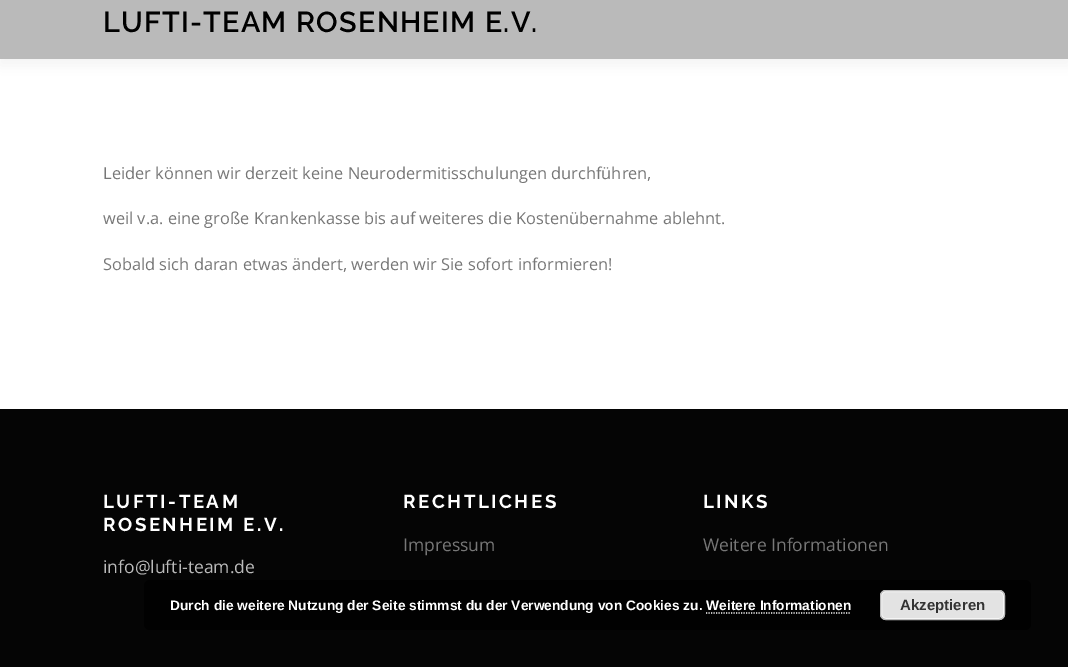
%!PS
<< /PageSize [1068 667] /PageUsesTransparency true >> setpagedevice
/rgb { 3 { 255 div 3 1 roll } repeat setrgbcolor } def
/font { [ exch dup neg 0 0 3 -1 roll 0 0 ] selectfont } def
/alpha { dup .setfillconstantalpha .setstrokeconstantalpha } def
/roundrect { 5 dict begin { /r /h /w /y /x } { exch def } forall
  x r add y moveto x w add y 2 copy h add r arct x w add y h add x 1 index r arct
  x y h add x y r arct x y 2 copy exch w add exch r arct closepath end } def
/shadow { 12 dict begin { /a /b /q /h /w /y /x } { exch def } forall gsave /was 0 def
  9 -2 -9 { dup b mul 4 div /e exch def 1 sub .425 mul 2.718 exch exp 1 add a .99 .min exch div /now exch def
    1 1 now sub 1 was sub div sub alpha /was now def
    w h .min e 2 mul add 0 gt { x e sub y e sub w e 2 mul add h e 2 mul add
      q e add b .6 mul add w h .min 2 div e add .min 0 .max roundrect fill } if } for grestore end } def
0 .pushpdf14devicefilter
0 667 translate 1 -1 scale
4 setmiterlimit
255 255 255 rgb
0 0 1068 667 rectfill
50 50 50 rgb
0 -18 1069 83 0 6 0.06 shadow
186 186 186 rgb
0 0 1068 59 rectfill
5 5 5 rgb
0 409 1068 258 rectfill
0.85 alpha
0 0 0 rgb
144 580 887 50 6 roundrect fill
1 alpha
227 227 227 rgb
880 590 125 30 6 roundrect fill
246 246 246 rgb
881.5 591.5 122 27 4.5 roundrect stroke
187 187 187 rgb
880.5 590.5 124 29 5.5 roundrect stroke
255 255 255 rgb
1.2 setlinewidth
[1.25 1.25] 0 setdash
706 613 moveto 851 613 lineto stroke
/Raleway-SemiBold 28.75 font
0 0 0 rgb
103 32 moveto 1.25 0 (LUFTI-TEAM ROSENHEIM E.V.) ashow
/OpenSans-Regular 16.4 font
119 119 119 rgb
[
  [(Leider können wir derzeit keine Neurodermitisschulungen durchführen,) 103 179]
  [(weil v.a. eine große Krankenkasse bis auf weiteres die Kostenübernahme ablehnt.) 103 224]
  [(Sobald sich daran etwas ändert, werden wir Sie sofort informieren!) 103 270]
] { aload pop moveto show } forall
/Raleway-Bold 18.75 font
255 255 255 rgb
103 508 moveto 2.5 0 (LUFTI-TEAM) ashow
103 531 moveto 2.5 0 (ROSENHEIM E.V.) ashow
/OpenSans-Regular 17.5 font
187 187 187 rgb
103 573 moveto (info@lufti-team.de) show
/Raleway-Bold 18.75 font
255 255 255 rgb
403 508 moveto 2.5 0 (RECHTLICHES) ashow
/OpenSans-Regular 17.5 font
119 119 119 rgb
403 551 moveto (Impressum) show
/Raleway-Bold 18.75 font
255 255 255 rgb
703 508 moveto 2.5 0 (LINKS) ashow
/OpenSans-Regular 17.5 font
119 119 119 rgb
703 551 moveto (Weitere Informationen) show
/LiberationSans-Bold 13.75 font
255 255 255 rgb
170 610 moveto (Durch die weitere Nutzung der Seite stimmst du der Verwendung von Cookies zu. Weitere Informationen) show
/LiberationSans-Bold 15 font
51 51 51 rgb
900 610 moveto (Akzeptieren) show
.poppdf14devicefilter showpage
